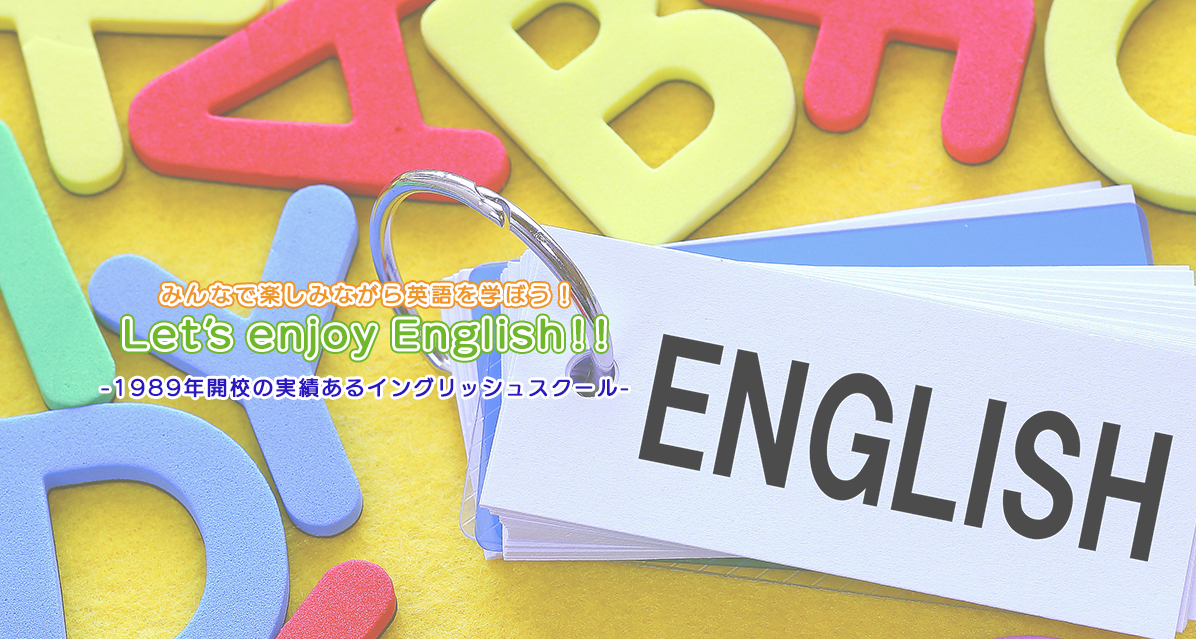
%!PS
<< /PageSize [1196 639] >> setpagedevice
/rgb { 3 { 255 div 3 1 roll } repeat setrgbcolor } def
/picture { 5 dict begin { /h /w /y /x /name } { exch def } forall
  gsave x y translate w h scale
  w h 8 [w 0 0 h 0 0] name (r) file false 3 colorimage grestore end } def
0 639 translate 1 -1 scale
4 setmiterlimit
255 255 255 rgb
0 0 1196 639 rectfill
(img/1.rgb) 0 0 1196 639 picture
(img/2.rgb) 98 279 534 122 picture
showpage
